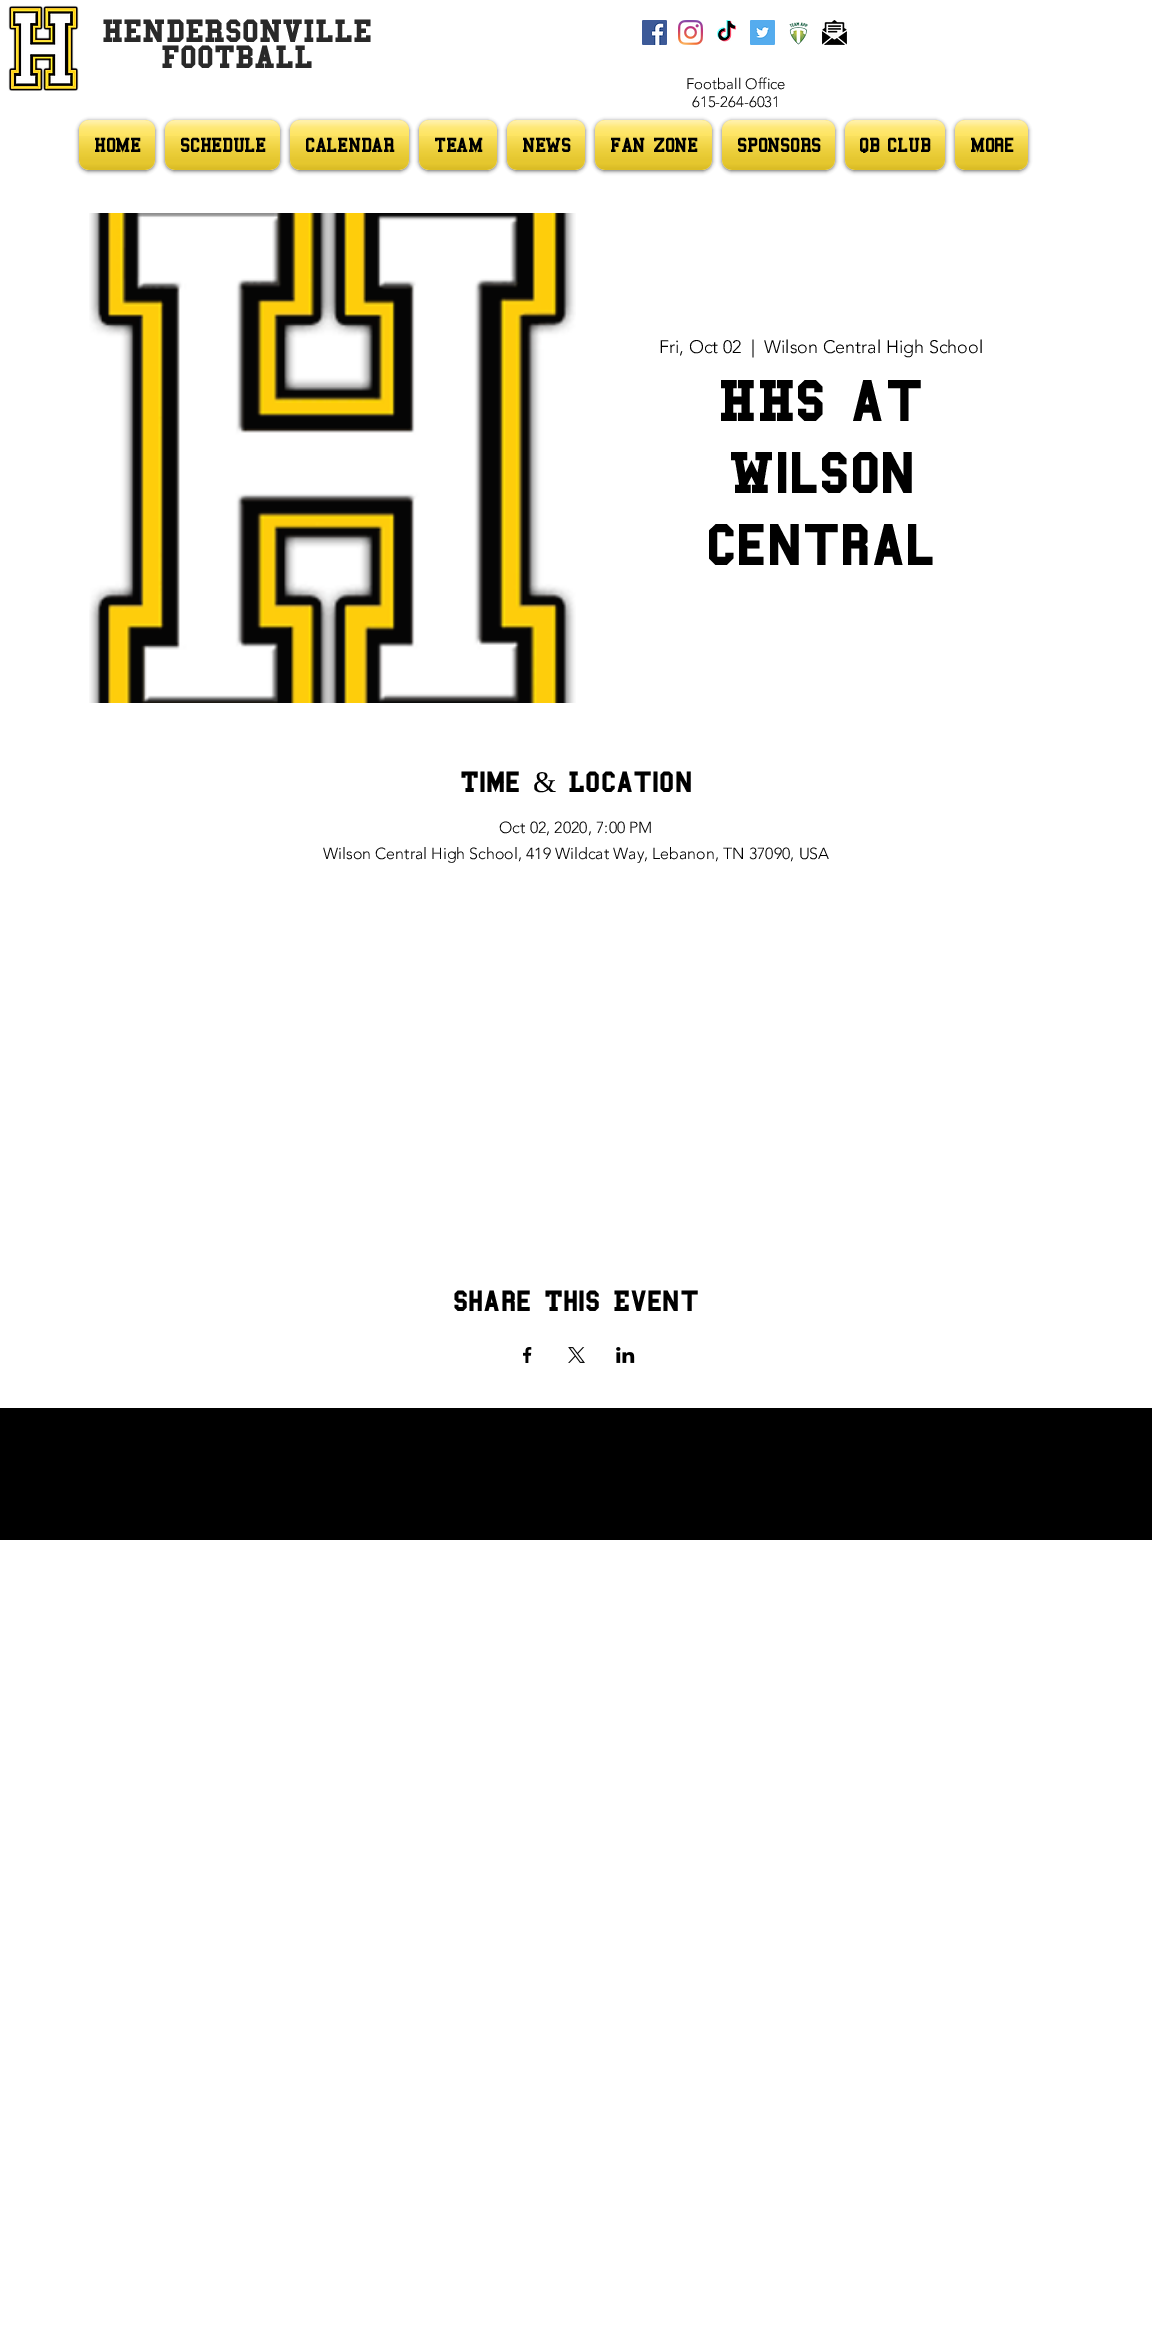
%!PS
<< /PageSize [1152 2342] /PageUsesTransparency true >> setpagedevice
/rgb { 3 { 255 div 3 1 roll } repeat setrgbcolor } def
/font { [ exch dup neg 0 0 3 -1 roll 0 0 ] selectfont } def
/alpha { dup .setfillconstantalpha .setstrokeconstantalpha } def
/roundrect { 5 dict begin { /r /h /w /y /x } { exch def } forall
  x r add y moveto x w add y 2 copy h add r arct x w add y h add x 1 index r arct
  x y h add x y r arct x y 2 copy exch w add exch r arct closepath end } def
/shadow { 12 dict begin { /a /b /q /h /w /y /x } { exch def } forall gsave /was 0 def
  9 -2 -9 { dup b mul 4 div /e exch def 1 sub .425 mul 2.718 exch exp 1 add a .99 .min exch div /now exch def
    1 1 now sub 1 was sub div sub alpha /was now def
    w h .min e 2 mul add 0 gt { x e sub y e sub w e 2 mul add h e 2 mul add
      q e add b .6 mul add w h .min 2 div e add .min 0 .max roundrect fill } if } for grestore end } def
/picture { 5 dict begin { /h /w /y /x /name } { exch def } forall
  gsave x y translate w h scale
  w h 8 [w 0 0 h 0 0] name (r) file false 3 colorimage grestore end } def
0 .pushpdf14devicefilter
0 2342 translate 1 -1 scale
4 setmiterlimit
255 255 255 rgb
0 0 1152 2342 rectfill
(img/1.rgb) 8 5 71 86 picture
gsave
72 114 moveto 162 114 lineto 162 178 lineto 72 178 lineto closepath 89 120 moveto 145 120 lineto 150.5 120 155 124.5 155 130 curveto 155 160 lineto 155 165.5 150.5 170 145 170 curveto 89 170 lineto 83.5 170 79 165.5 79 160 curveto 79 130 lineto 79 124.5 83.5 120 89 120 curveto closepath eoclip newpath
0 0 0 rgb
79 121 76 50 10 2 0.6 shadow
grestore
0.83 alpha
254 212 0 rgb
79 120 76 50 10 roundrect fill
1 alpha
(img/2.rgb) 79 120 76 46 picture
(img/3.rgb) 79 136 76 34 picture
gsave
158 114 moveto 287 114 lineto 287 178 lineto 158 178 lineto closepath 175 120 moveto 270 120 lineto 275.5 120 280 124.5 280 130 curveto 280 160 lineto 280 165.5 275.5 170 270 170 curveto 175 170 lineto 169.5 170 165 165.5 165 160 curveto 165 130 lineto 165 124.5 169.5 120 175 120 curveto closepath eoclip newpath
0 0 0 rgb
165 121 115 50 10 2 0.6 shadow
grestore
0.83 alpha
165 120 115 50 10 roundrect fill
1 alpha
(img/4.rgb) 165 120 115 46 picture
(img/5.rgb) 165 136 115 34 picture
gsave
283 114 moveto 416 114 lineto 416 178 lineto 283 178 lineto closepath 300 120 moveto 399 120 lineto 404.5 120 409 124.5 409 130 curveto 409 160 lineto 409 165.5 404.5 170 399 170 curveto 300 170 lineto 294.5 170 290 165.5 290 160 curveto 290 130 lineto 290 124.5 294.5 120 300 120 curveto closepath eoclip newpath
0 0 0 rgb
290 121 119 50 10 2 0.6 shadow
grestore
0.83 alpha
290 120 119 50 10 roundrect fill
1 alpha
(img/6.rgb) 290 120 119 46 picture
(img/7.rgb) 290 136 119 34 picture
gsave
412 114 moveto 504 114 lineto 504 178 lineto 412 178 lineto closepath 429 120 moveto 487 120 lineto 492.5 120 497 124.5 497 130 curveto 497 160 lineto 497 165.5 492.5 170 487 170 curveto 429 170 lineto 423.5 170 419 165.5 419 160 curveto 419 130 lineto 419 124.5 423.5 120 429 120 curveto closepath eoclip newpath
0 0 0 rgb
419 121 78 50 10 2 0.6 shadow
grestore
0.83 alpha
419 120 78 50 10 roundrect fill
1 alpha
(img/8.rgb) 419 120 78 46 picture
(img/9.rgb) 419 136 78 34 picture
gsave
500 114 moveto 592 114 lineto 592 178 lineto 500 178 lineto closepath 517 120 moveto 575 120 lineto 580.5 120 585 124.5 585 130 curveto 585 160 lineto 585 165.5 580.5 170 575 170 curveto 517 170 lineto 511.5 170 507 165.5 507 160 curveto 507 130 lineto 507 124.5 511.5 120 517 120 curveto closepath eoclip newpath
0 0 0 rgb
507 121 78 50 10 2 0.6 shadow
grestore
0.83 alpha
507 120 78 50 10 roundrect fill
1 alpha
(img/10.rgb) 507 120 78 46 picture
(img/11.rgb) 507 136 78 34 picture
gsave
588 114 moveto 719 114 lineto 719 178 lineto 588 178 lineto closepath 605 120 moveto 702 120 lineto 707.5 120 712 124.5 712 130 curveto 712 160 lineto 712 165.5 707.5 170 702 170 curveto 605 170 lineto 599.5 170 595 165.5 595 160 curveto 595 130 lineto 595 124.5 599.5 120 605 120 curveto closepath eoclip newpath
0 0 0 rgb
595 121 117 50 10 2 0.6 shadow
grestore
0.83 alpha
595 120 117 50 10 roundrect fill
1 alpha
(img/12.rgb) 595 120 117 46 picture
(img/13.rgb) 595 136 117 34 picture
gsave
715 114 moveto 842 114 lineto 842 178 lineto 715 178 lineto closepath 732 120 moveto 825 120 lineto 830.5 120 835 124.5 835 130 curveto 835 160 lineto 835 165.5 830.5 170 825 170 curveto 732 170 lineto 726.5 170 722 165.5 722 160 curveto 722 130 lineto 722 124.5 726.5 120 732 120 curveto closepath eoclip newpath
0 0 0 rgb
722 121 113 50 10 2 0.6 shadow
grestore
0.83 alpha
722 120 113 50 10 roundrect fill
1 alpha
(img/14.rgb) 722 120 113 46 picture
(img/15.rgb) 722 136 113 34 picture
gsave
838 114 moveto 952 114 lineto 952 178 lineto 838 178 lineto closepath 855 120 moveto 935 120 lineto 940.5 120 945 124.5 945 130 curveto 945 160 lineto 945 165.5 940.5 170 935 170 curveto 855 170 lineto 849.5 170 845 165.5 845 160 curveto 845 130 lineto 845 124.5 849.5 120 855 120 curveto closepath eoclip newpath
0 0 0 rgb
845 121 100 50 10 2 0.6 shadow
grestore
0.83 alpha
845 120 100 50 10 roundrect fill
1 alpha
(img/16.rgb) 845 120 100 46 picture
(img/17.rgb) 845 136 100 34 picture
gsave
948 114 moveto 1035 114 lineto 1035 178 lineto 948 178 lineto closepath 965 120 moveto 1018 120 lineto 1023.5 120 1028 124.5 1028 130 curveto 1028 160 lineto 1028 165.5 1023.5 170 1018 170 curveto 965 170 lineto 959.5 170 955 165.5 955 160 curveto 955 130 lineto 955 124.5 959.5 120 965 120 curveto closepath eoclip newpath
0 0 0 rgb
955 121 73 50 10 2 0.6 shadow
grestore
0.83 alpha
955 120 73 50 10 roundrect fill
1 alpha
(img/18.rgb) 955 120 73 46 picture
(img/19.rgb) 955 136 73 34 picture
(img/20.rgb) 642 20 25 25 picture
(img/21.rgb) 678 20 25 25 picture
(img/22.rgb) 717 20 19 22 picture
(img/23.rgb) 750 20 25 25 picture
(img/24.rgb) 789 22 19 23 picture
(img/25.rgb) 822 20 25 25 picture
(img/26.rgb) 89 213 487 490 picture
(img/27.rgb) 523 1347 9 16 picture
(img/28.rgb) 568 1347 17 16 picture
(img/29.rgb) 616 1347 19 16 picture
0 0 0 rgb
0 1408 1152 132 rectfill
/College-Bold 33 font
41 41 41 rgb
102 42 moveto (HENDERSONVILLE) show
161 68 moveto (FOOTBALL) show
/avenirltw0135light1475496-Light 15 font
0 0 0 rgb
686 89 moveto (Football Office) show
692 107 moveto (615-264-6031) show
/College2-Bold 20 font
[
  [(HOME) 94 152]
  [(SCHEDULE) 180 152]
  [(CALENDAR) 305 152]
  [(TEAM) 434 152]
  [(NEWS) 522 152]
  [(FAN ZONE) 610 152]
  [(SPONSORS) 737 152]
  [(QB CLUB) 859 152]
  [(More) 970 152]
] { aload pop moveto show } forall
/avenirltw0135light1475496-Light 18 font
[
  [(Fri, Oct 02) 659 353]
  [(|) 751 353]
  [(Wilson Central High School) 764 353]
] { aload pop moveto show } forall
/College-Bold 60 font
[
  [(HHS at) 718 421]
  [(Wilson) 728 493]
  [(Central) 706 565]
] { aload pop moveto show } forall
/College-Bold 30 font
460 792 moveto (Time) show
/LiberationSerif-Regular 30 font
533 792 moveto (&) show
/College-Bold 30 font
568 792 moveto (Location) show
/avenirltw0135light1475496-Light 16 font
499 833 moveto (Oct 02, 2020, 7:00 PM) show
323 859 moveto (Wilson Central High School, 419 Wildcat Way, Lebanon, TN 37090, USA) show
/College-Bold 30 font
453 1311 moveto (Share This Event) show
.poppdf14devicefilter showpage
